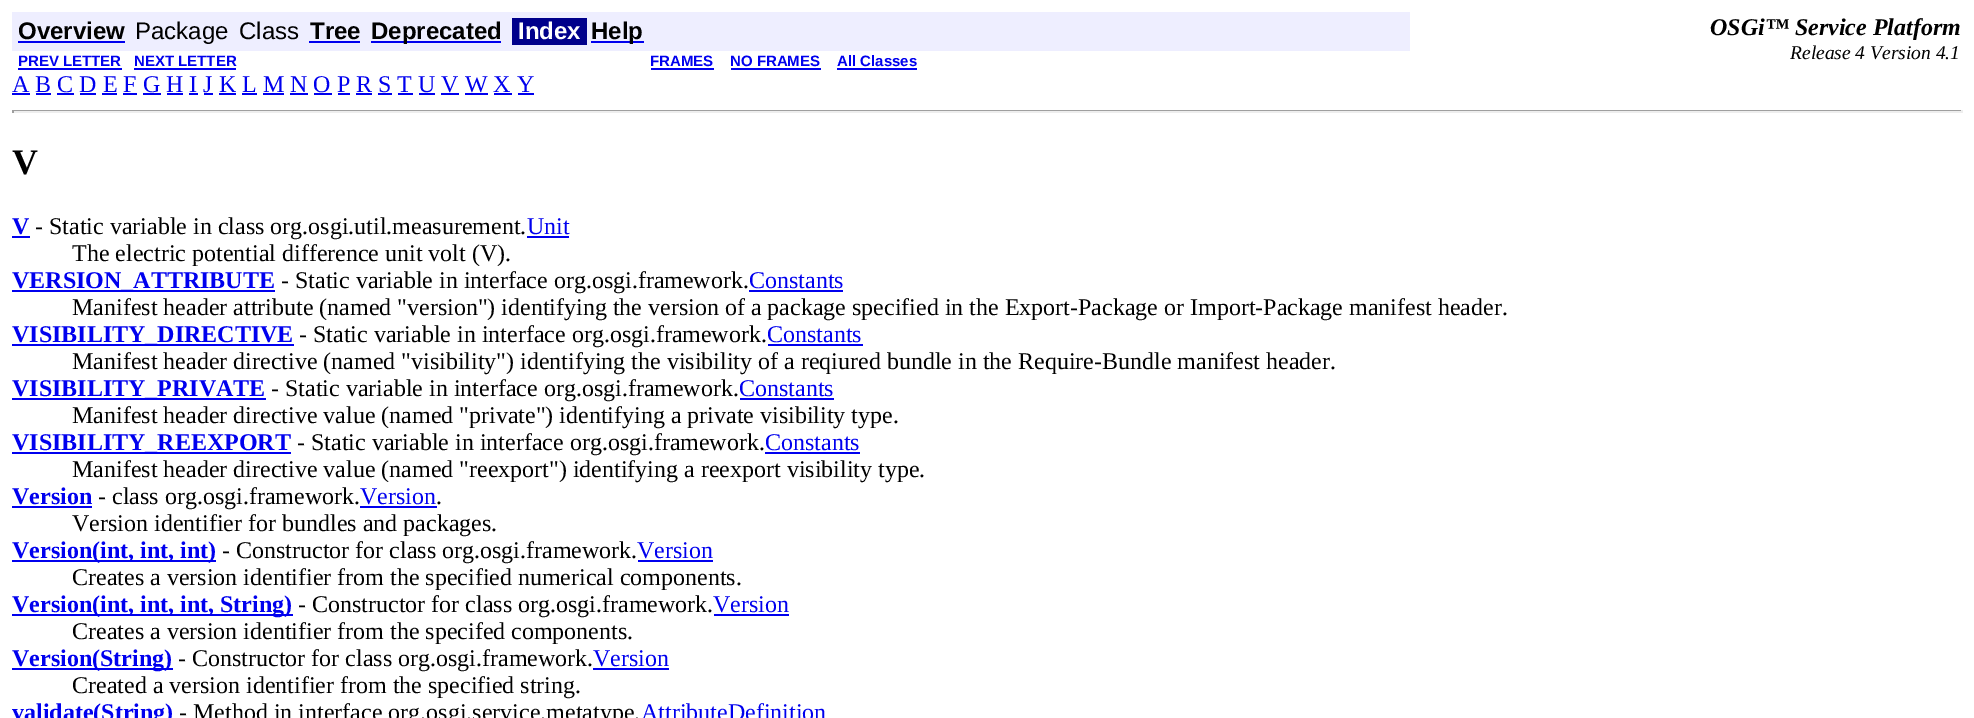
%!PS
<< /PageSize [1974 718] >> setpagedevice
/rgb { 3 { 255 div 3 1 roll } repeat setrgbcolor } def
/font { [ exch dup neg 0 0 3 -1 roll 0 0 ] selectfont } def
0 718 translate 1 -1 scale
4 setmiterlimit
255 255 255 rgb
0 0 1974 718 rectfill
[
  [12 12 1398 39 238 238 255]
  [18 41 107 2 0 0 238]
  [309 41 51 2 0 0 238]
  [371 41 130 2 0 0 238]
  [512 18 75 27 0 0 139]
  [591 41 53 2 0 0 238]
  [18 68 104 2 0 0 238]
  [134 68 102 2 0 0 238]
  [651 68 63 2 0 0 238]
  [731 68 90 2 0 0 238]
  [837 68 80 2 0 0 238]
  [12 93 18 2 0 0 238]
  [36 93 15 2 0 0 238]
  [57 93 17 2 0 0 238]
  [80 93 16 2 0 0 238]
  [102 93 15 2 0 0 238]
  [123 93 14 2 0 0 238]
  [143 93 18 2 0 0 238]
  [167 93 16 2 0 0 238]
  [189 93 9 2 0 0 238]
  [204 93 9 2 0 0 238]
  [219 93 17 2 0 0 238]
  [242 93 15 2 0 0 238]
  [263 93 21 2 0 0 238]
  [290 93 18 2 0 0 238]
  [314 93 18 2 0 0 238]
  [338 93 12 2 0 0 238]
  [356 93 16 2 0 0 238]
  [378 93 14 2 0 0 238]
  [398 93 15 2 0 0 238]
  [419 93 16 2 0 0 238]
  [441 93 18 2 0 0 238]
  [465 93 23 2 0 0 238]
  [494 93 18 2 0 0 238]
  [518 93 16 2 0 0 238]
  [12 110 1950 1 159 159 159]
  [1961 110 2 3 238 238 238]
  [12 111 1950 2 238 238 238]
  [12 110 2 3 159 159 159]
  [12 236 18 2 0 0 238]
  [527 236 42 2 0 0 238]
  [12 290 263 2 0 0 238]
  [749 290 94 2 0 0 238]
  [12 344 282 2 0 0 238]
  [768 344 95 2 0 0 238]
  [12 398 254 2 0 0 238]
  [740 398 94 2 0 0 238]
  [12 452 279 2 0 0 238]
  [765 452 95 2 0 0 238]
  [12 506 80 2 0 0 238]
  [360 506 77 2 0 0 238]
  [12 560 204 2 0 0 238]
  [638 560 75 2 0 0 238]
  [12 614 281 2 0 0 238]
  [714 614 75 2 0 0 238]
  [12 668 161 2 0 0 238]
  [593 668 76 2 0 0 238]
] { aload pop rgb rectfill } forall
/LiberationSans-Bold 24 font
0 0 0 rgb
18 39 moveto (Overview) show
/LiberationSans-Regular 24 font
135 39 moveto (Package) show
239 39 moveto (Class) show
/LiberationSans-Bold 24 font
310 39 moveto (Tree) show
371 39 moveto (Deprecated) show
255 255 255 rgb
518 39 moveto (Index) show
0 0 0 rgb
591 39 moveto (Help) show
/LiberationSerif-BoldItalic 24 font
1710 35 moveto (OSGi™ Service Platform) show
/LiberationSerif-Italic 19.5 font
1790 59 moveto (Release 4 Version 4.1) show
/LiberationSans-Bold 15 font
0 0 238 rgb
[
  [(PREV LETTER) 18 66]
  [(NEXT LETTER) 134 66]
  [(FRAMES) 650 66]
  [(NO FRAMES) 730 66]
  [(All Classes) 837 66]
] { aload pop moveto show } forall
/LiberationSerif-Regular 24 font
12 92 moveto (A B C D E F G H I J K L M N O P R S T U V W X Y) show
/LiberationSerif-Bold 36 font
0 0 0 rgb
12 174 moveto (V) show
/LiberationSerif-Bold 24 font
0 0 238 rgb
12 234 moveto (V) show
/LiberationSerif-Regular 24 font
0 0 0 rgb
35 234 moveto (- Static variable in class org.osgi.util.measurement.) show
0 0 238 rgb
527 234 moveto (Unit) show
0 0 0 rgb
72 261 moveto (The electric potential difference unit volt \(V\).) show
/LiberationSerif-Bold 24 font
0 0 238 rgb
12 288 moveto (VERSION_ATTRIBUTE) show
/LiberationSerif-Regular 24 font
0 0 0 rgb
281 288 moveto (- Static variable in interface org.osgi.framework.) show
0 0 238 rgb
749 288 moveto (Constants) show
0 0 0 rgb
72 315 moveto (Manifest header attribute \(named "version"\) identifying the version of a package specified in the Export-Package or Import-Package manifest header.) show
/LiberationSerif-Bold 24 font
0 0 238 rgb
12 342 moveto (VISIBILITY_DIRECTIVE) show
/LiberationSerif-Regular 24 font
0 0 0 rgb
299 342 moveto (- Static variable in interface org.osgi.framework.) show
0 0 238 rgb
767 342 moveto (Constants) show
0 0 0 rgb
72 369 moveto (Manifest header directive \(named "visibility"\) identifying the visibility of a reqiured bundle in the Require-Bundle manifest header.) show
/LiberationSerif-Bold 24 font
0 0 238 rgb
12 396 moveto (VISIBILITY_PRIVATE) show
/LiberationSerif-Regular 24 font
0 0 0 rgb
271 396 moveto (- Static variable in interface org.osgi.framework.) show
0 0 238 rgb
739 396 moveto (Constants) show
0 0 0 rgb
72 423 moveto (Manifest header directive value \(named "private"\) identifying a private visibility type.) show
/LiberationSerif-Bold 24 font
0 0 238 rgb
12 450 moveto (VISIBILITY_REEXPORT) show
/LiberationSerif-Regular 24 font
0 0 0 rgb
297 450 moveto (- Static variable in interface org.osgi.framework.) show
0 0 238 rgb
765 450 moveto (Constants) show
0 0 0 rgb
72 477 moveto (Manifest header directive value \(named "reexport"\) identifying a reexport visibility type.) show
/LiberationSerif-Bold 24 font
0 0 238 rgb
12 504 moveto (Version) show
/LiberationSerif-Regular 24 font
0 0 0 rgb
98 504 moveto (- class org.osgi.framework.) show
0 0 238 rgb
360 504 moveto (Version) show
0 0 0 rgb
436 504 moveto (.) show
72 531 moveto (Version identifier for bundles and packages.) show
/LiberationSerif-Bold 24 font
0 0 238 rgb
12 558 moveto (Version\(int, int, int\)) show
/LiberationSerif-Regular 24 font
0 0 0 rgb
222 558 moveto (- Constructor for class org.osgi.framework.) show
0 0 238 rgb
637 558 moveto (Version) show
0 0 0 rgb
72 585 moveto (Creates a version identifier from the specified numerical components.) show
/LiberationSerif-Bold 24 font
0 0 238 rgb
12 612 moveto (Version\(int, int, int, String\)) show
/LiberationSerif-Regular 24 font
0 0 0 rgb
298 612 moveto (- Constructor for class org.osgi.framework.) show
0 0 238 rgb
713 612 moveto (Version) show
0 0 0 rgb
72 639 moveto (Creates a version identifier from the specifed components.) show
/LiberationSerif-Bold 24 font
0 0 238 rgb
12 666 moveto (Version\(String\)) show
/LiberationSerif-Regular 24 font
0 0 0 rgb
178 666 moveto (- Constructor for class org.osgi.framework.) show
0 0 238 rgb
593 666 moveto (Version) show
0 0 0 rgb
72 693 moveto (Created a version identifier from the specified string.) show
/LiberationSerif-Bold 24 font
0 0 238 rgb
12 720 moveto (validate\(String\)) show
/LiberationSerif-Regular 24 font
0 0 0 rgb
179 720 moveto (- Method in interface org.osgi.service.metatype.) show
0 0 238 rgb
641 720 moveto (AttributeDefinition) show
showpage
